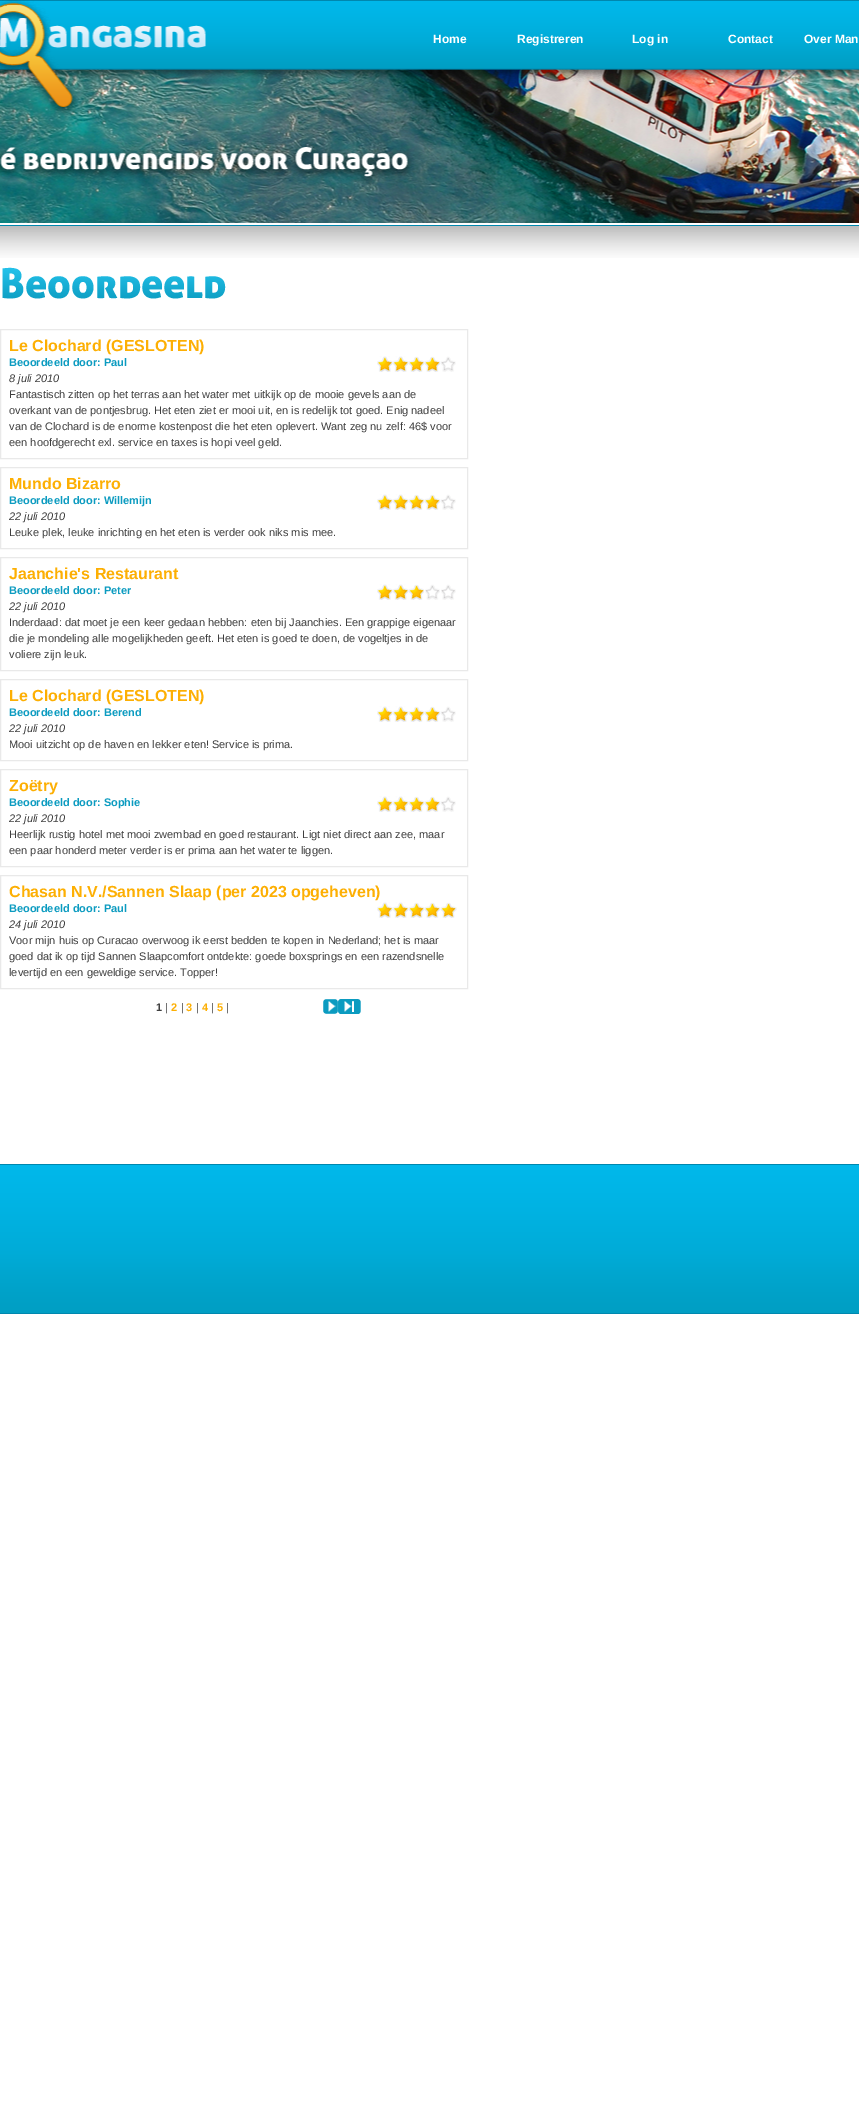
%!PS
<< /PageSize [859 2102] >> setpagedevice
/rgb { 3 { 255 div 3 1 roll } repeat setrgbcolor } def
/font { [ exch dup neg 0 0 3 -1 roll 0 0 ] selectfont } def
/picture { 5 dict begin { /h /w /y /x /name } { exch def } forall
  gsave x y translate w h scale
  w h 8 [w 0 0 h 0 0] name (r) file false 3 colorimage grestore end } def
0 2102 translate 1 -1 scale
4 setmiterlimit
255 255 255 rgb
0 0 859 2102 rectfill
(img/1.rgb) 0 0 859 223 picture
(img/2.rgb) 0 226 859 32 picture
0 135 174 rgb
0 225 859 1 rectfill
(img/3.rgb) 2 267 224 32 picture
233 233 233 rgb
0.5 329.5 467 129 rectstroke
(img/4.rgb) 377 356 79 16 picture
0.5 467.5 467 81 rectstroke
(img/4.rgb) 377 494 79 16 picture
0.5 557.5 467 113 rectstroke
(img/5.rgb) 377 584 79 16 picture
0.5 679.5 467 81 rectstroke
(img/4.rgb) 377 706 79 16 picture
0.5 769.5 467 97 rectstroke
(img/4.rgb) 377 796 79 16 picture
0.5 875.5 467 113 rectstroke
(img/6.rgb) 377 902 80 16 picture
(img/7.rgb) 323 999 15 15 picture
(img/8.rgb) 338 999 23 15 picture
(img/9.rgb) 0 1164 859 150 picture
/LiberationSans-Bold 12 font
255 255 255 rgb
[
  [(Home) 433 43]
  [(Registreren) 517 43]
  [(Log in) 632 43]
  [(Contact) 728 43]
  [(Over Man) 804 43]
] { aload pop moveto show } forall
/LiberationSans-Bold 16 font
253 175 3 rgb
9 351 moveto (Le Clochard \(GESLOTEN\)) show
/LiberationSans-Bold 11 font
11 155 192 rgb
9 366 moveto (Beoordeeld door: Paul) show
/LiberationSans-Italic 11 font
63 63 63 rgb
9 382 moveto (8 juli 2010) show
/LiberationSans-Regular 11 font
[
  [(Fantastisch zitten op het terras aan het water met uitkijk op de mooie gevels aan de) 9 398]
  [(overkant van de pontjesbrug. Het eten ziet er mooi uit, en is redelijk tot goed. Enig nadeel) 9 414]
  [(van de Clochard is de enorme kostenpost die het eten oplevert. Want zeg nu zelf: 46$ voor) 9 430]
  [(een hoofdgerecht exl. service en taxes is hopi veel geld.) 9 446]
] { aload pop moveto show } forall
/LiberationSans-Bold 16 font
253 175 3 rgb
9 489 moveto (Mundo Bizarro) show
/LiberationSans-Bold 11 font
11 155 192 rgb
9 504 moveto (Beoordeeld door: Willemijn) show
/LiberationSans-Italic 11 font
63 63 63 rgb
9 520 moveto (22 juli 2010) show
/LiberationSans-Regular 11 font
9 536 moveto (Leuke plek, leuke inrichting en het eten is verder ook niks mis mee.) show
/LiberationSans-Bold 16 font
253 175 3 rgb
9 579 moveto (Jaanchie's Restaurant) show
/LiberationSans-Bold 11 font
11 155 192 rgb
9 594 moveto (Beoordeeld door: Peter) show
/LiberationSans-Italic 11 font
63 63 63 rgb
9 610 moveto (22 juli 2010) show
/LiberationSans-Regular 11 font
[
  [(Inderdaad: dat moet je een keer gedaan hebben: eten bij Jaanchies. Een grappige eigenaar) 9 626]
  [(die je mondeling alle mogelijkheden geeft. Het eten is goed te doen, de vogeltjes in de) 9 642]
  [(voliere zijn leuk.) 9 658]
] { aload pop moveto show } forall
/LiberationSans-Bold 16 font
253 175 3 rgb
9 701 moveto (Le Clochard \(GESLOTEN\)) show
/LiberationSans-Bold 11 font
11 155 192 rgb
9 716 moveto (Beoordeeld door: Berend) show
/LiberationSans-Italic 11 font
63 63 63 rgb
9 732 moveto (22 juli 2010) show
/LiberationSans-Regular 11 font
9 748 moveto (Mooi uitzicht op de haven en lekker eten! Service is prima.) show
/LiberationSans-Bold 16 font
253 175 3 rgb
9 791 moveto (Zoëtry) show
/LiberationSans-Bold 11 font
11 155 192 rgb
9 806 moveto (Beoordeeld door: Sophie) show
/LiberationSans-Italic 11 font
63 63 63 rgb
9 822 moveto (22 juli 2010) show
/LiberationSans-Regular 11 font
9 838 moveto (Heerlijk rustig hotel met mooi zwembad en goed restaurant. Ligt niet direct aan zee, maar) show
9 854 moveto (een paar honderd meter verder is er prima aan het water te liggen.) show
/LiberationSans-Bold 16 font
253 175 3 rgb
9 897 moveto (Chasan N.V./Sannen Slaap \(per 2023 opgeheven\)) show
/LiberationSans-Bold 11 font
11 155 192 rgb
9 912 moveto (Beoordeeld door: Paul) show
/LiberationSans-Italic 11 font
63 63 63 rgb
9 928 moveto (24 juli 2010) show
/LiberationSans-Regular 11 font
[
  [(Voor mijn huis op Curacao overwoog ik eerst bedden te kopen in Nederland; het is maar) 9 944]
  [(goed dat ik op tijd Sannen Slaapcomfort ontdekte: goede boxsprings en een razendsnelle) 9 960]
  [(levertijd en een geweldige service. Topper!) 9 976]
] { aload pop moveto show } forall
/LiberationSans-Bold 11 font
156 1011 moveto (1) show
/LiberationSans-Regular 11 font
165 1011 moveto (|) show
/LiberationSans-Bold 11 font
253 175 3 rgb
171 1011 moveto (2) show
/LiberationSans-Regular 11 font
63 63 63 rgb
181 1011 moveto (|) show
/LiberationSans-Bold 11 font
253 175 3 rgb
186 1011 moveto (3) show
/LiberationSans-Regular 11 font
63 63 63 rgb
196 1011 moveto (|) show
/LiberationSans-Bold 11 font
253 175 3 rgb
202 1011 moveto (4) show
/LiberationSans-Regular 11 font
63 63 63 rgb
211 1011 moveto (|) show
/LiberationSans-Bold 11 font
253 175 3 rgb
217 1011 moveto (5) show
/LiberationSans-Regular 11 font
63 63 63 rgb
226 1011 moveto (|) show
showpage
